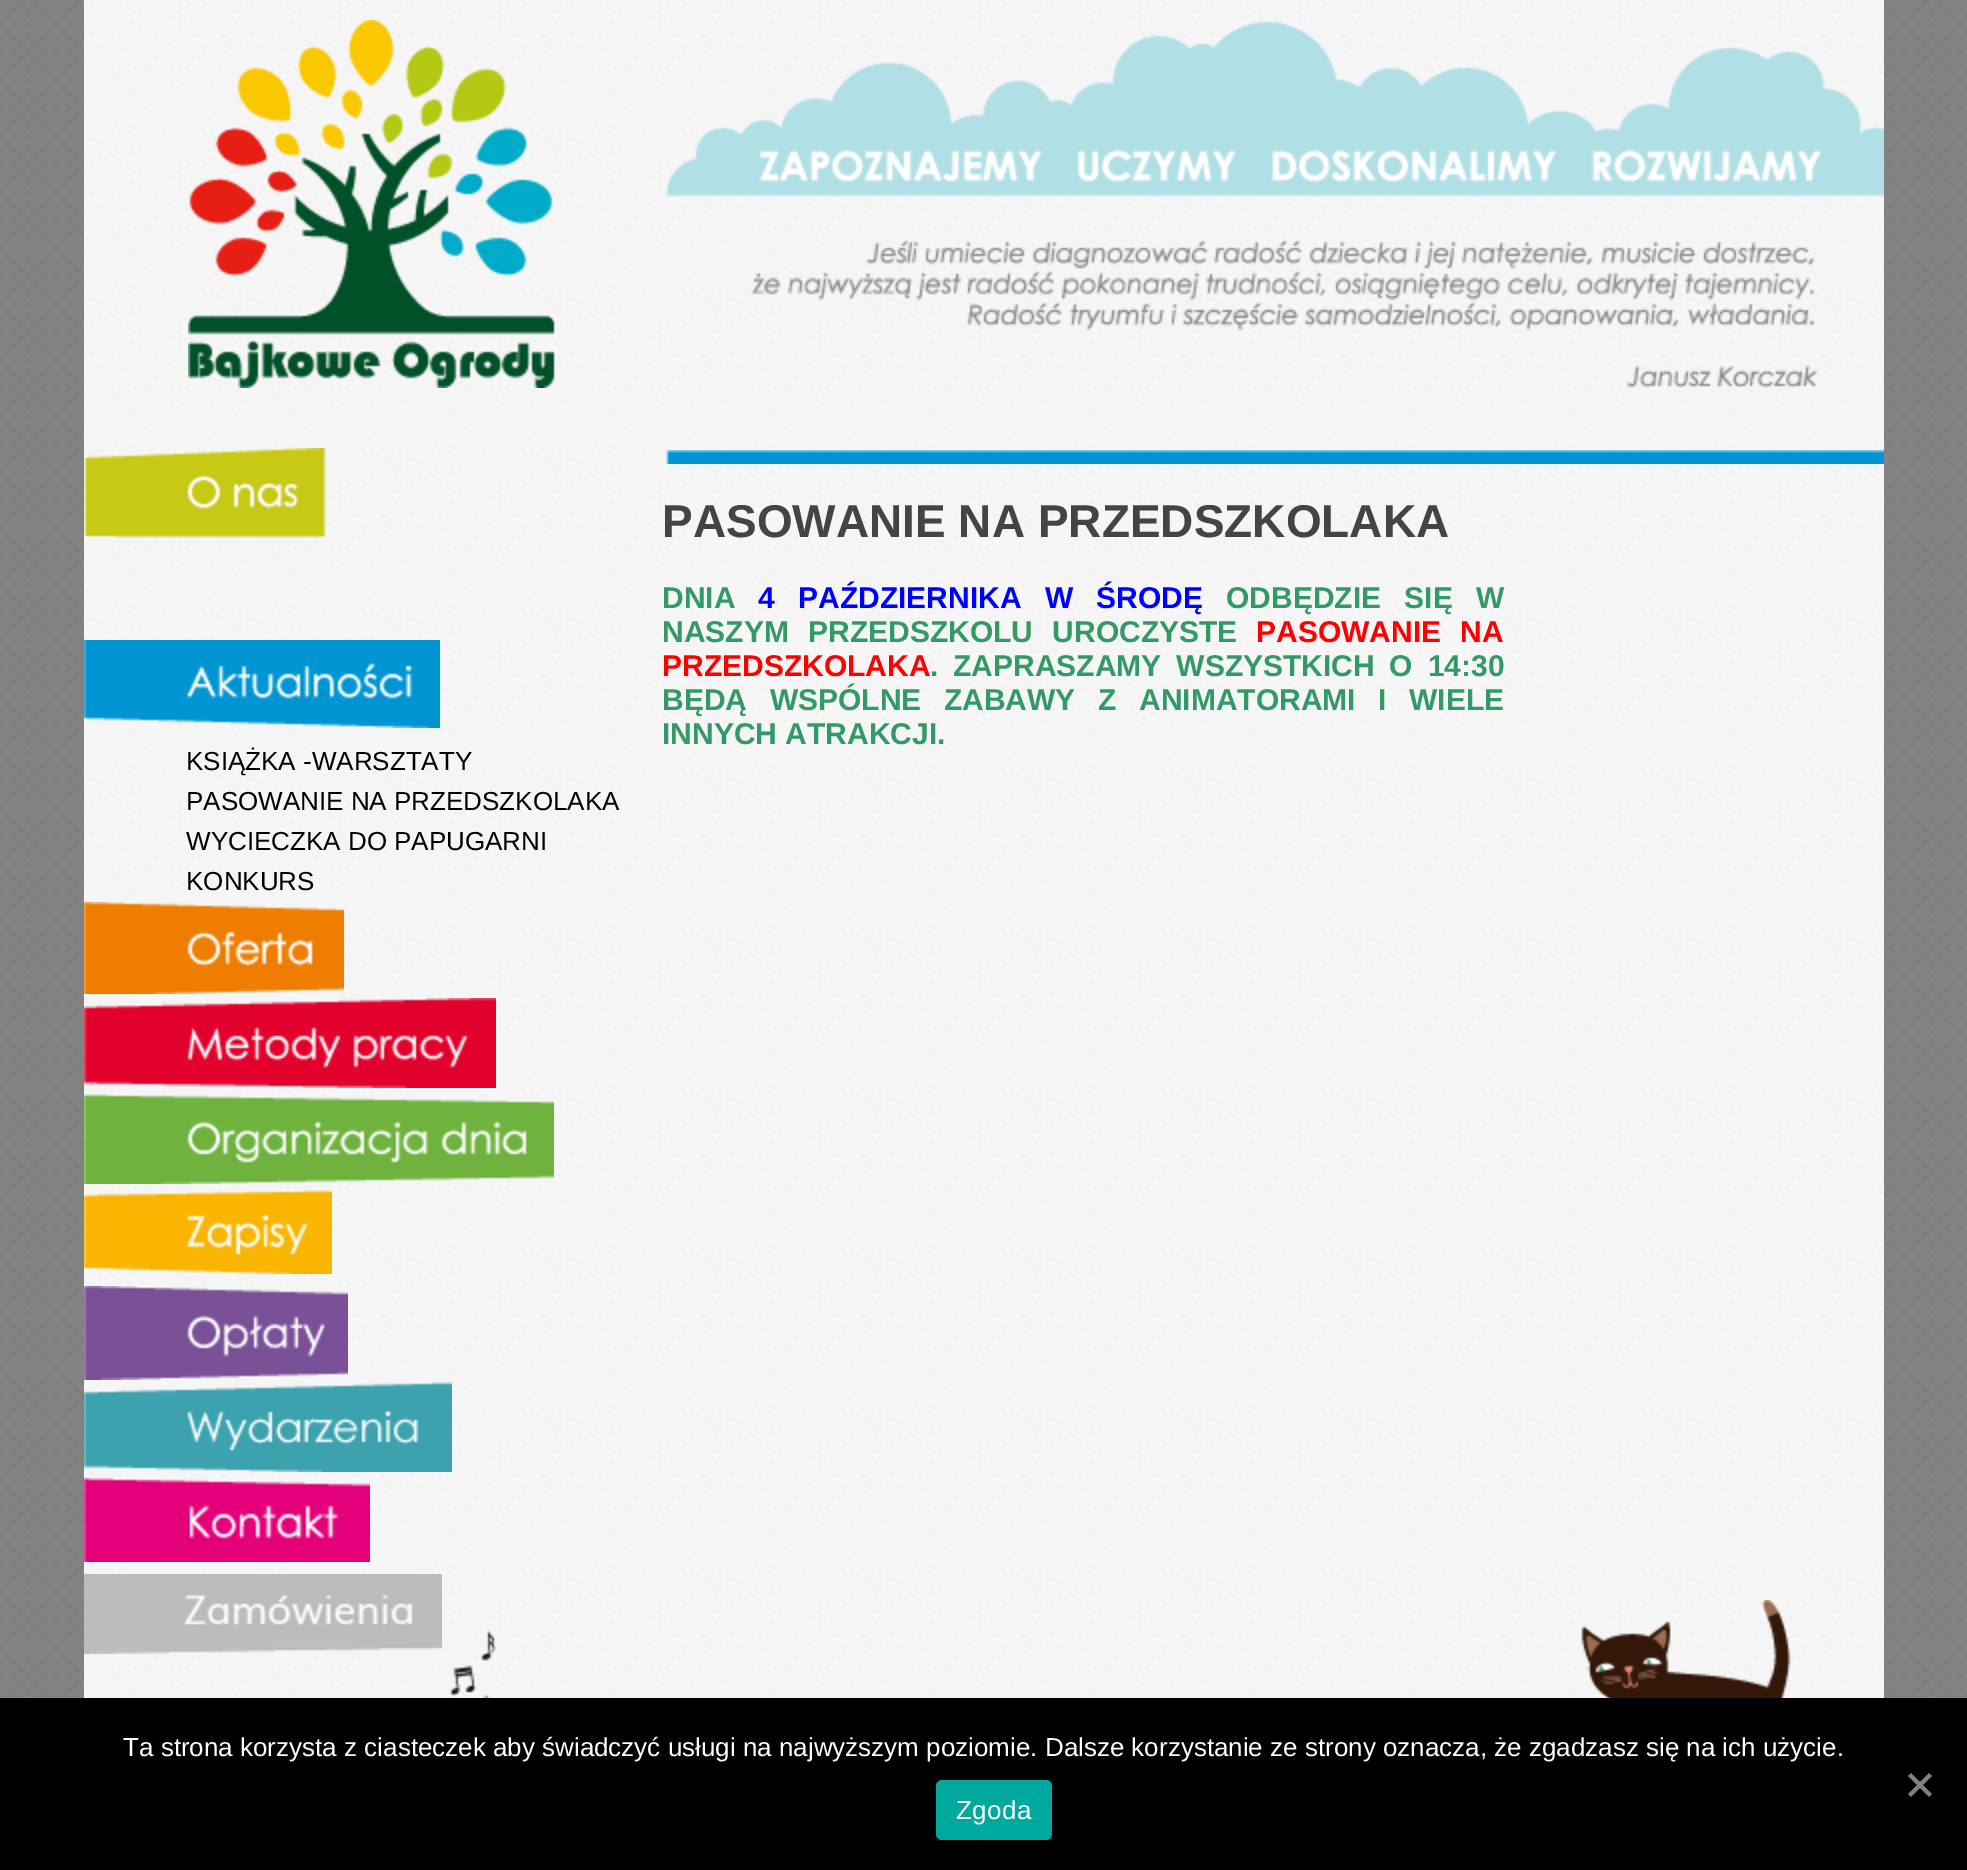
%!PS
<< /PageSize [1967 1870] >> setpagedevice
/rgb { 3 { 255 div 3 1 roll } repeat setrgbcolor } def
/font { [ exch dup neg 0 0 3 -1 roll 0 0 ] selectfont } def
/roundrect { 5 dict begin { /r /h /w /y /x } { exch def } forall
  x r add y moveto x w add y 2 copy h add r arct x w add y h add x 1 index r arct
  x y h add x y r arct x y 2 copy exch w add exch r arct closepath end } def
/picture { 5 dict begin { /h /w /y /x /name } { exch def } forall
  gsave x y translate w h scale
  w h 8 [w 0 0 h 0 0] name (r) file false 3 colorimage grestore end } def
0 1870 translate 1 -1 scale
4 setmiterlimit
255 255 255 rgb
0 0 1967 1870 rectfill
(img/1.rgb) 0 0 1967 1698 picture
(img/2.rgb) 84 0 1800 1698 picture
(img/3.rgb) 449 1600 1342 98 picture
(img/4.rgb) 188 20 1696 368 picture
(img/5.rgb) 666 450 1218 14 picture
(img/6.rgb) 84 448 242 90 picture
(img/7.rgb) 84 640 356 88 picture
(img/8.rgb) 84 902 260 92 picture
(img/9.rgb) 84 998 412 90 picture
(img/10.rgb) 84 1094 470 90 picture
(img/11.rgb) 84 1190 248 84 picture
(img/12.rgb) 84 1286 264 94 picture
(img/13.rgb) 84 1382 368 90 picture
(img/14.rgb) 84 1478 286 84 picture
(img/15.rgb) 84 1574 358 80 picture
0 0 0 rgb
0 1698 1967 172 rectfill
128 128 128 rgb
1929 1773 moveto 1932 1776 lineto 1911 1797 lineto 1908 1794 lineto closepath fill
1908 1776 moveto 1911 1773 lineto 1932 1794 lineto 1929 1797 lineto closepath fill
0 169 157 rgb
936 1780 116 60 6 roundrect fill
/LiberationSans-Bold 46 font
68 68 68 rgb
662 537 moveto (PASOWANIE NA PRZEDSZKOLAKA) show
/LiberationSans-Bold 30 font
51 153 102 rgb
662 608 moveto (DNIA) show
0 0 255 rgb
758 608 moveto 15 0 32 (4 PAŹDZIERNIKA W ŚRODĘ) widthshow
51 153 102 rgb
1226 608 moveto 15 0 32 (ODBĘDZIE SIĘ W) widthshow
662 642 moveto 11 0 32 (NASZYM PRZEDSZKOLU UROCZYSTE) widthshow
255 0 0 rgb
1256 642 moveto 11 0 32 (PASOWANIE NA) widthshow
662 676 moveto (PRZEDSZKOLAKA) show
51 153 102 rgb
930 676 moveto 6.5 0 32 (. ZAPRASZAMY WSZYSTKICH O 14:30) widthshow
662 710 moveto 14.25 0 32 (BĘDĄ WSPÓLNE ZABAWY Z ANIMATORAMI I WIELE) widthshow
662 744 moveto (INNYCH ATRAKCJI.) show
/LiberationSans-Regular 26 font
0 0 0 rgb
[
  [(KSIĄŻKA -WARSZTATY) 186 770]
  [(PASOWANIE NA PRZEDSZKOLAKA) 186 810]
  [(WYCIECZKA DO PAPUGARNI) 186 850]
  [(KONKURS) 186 890]
] { aload pop moveto show } forall
255 255 255 rgb
123 1756 moveto (Ta strona korzysta z ciasteczek aby świadczyć usługi na najwyższym poziomie. Dalsze korzystanie ze strony oznacza, że zgadzasz się na ich użycie.) show
956 1819 moveto 0.5 0 (Zgoda) ashow
showpage
